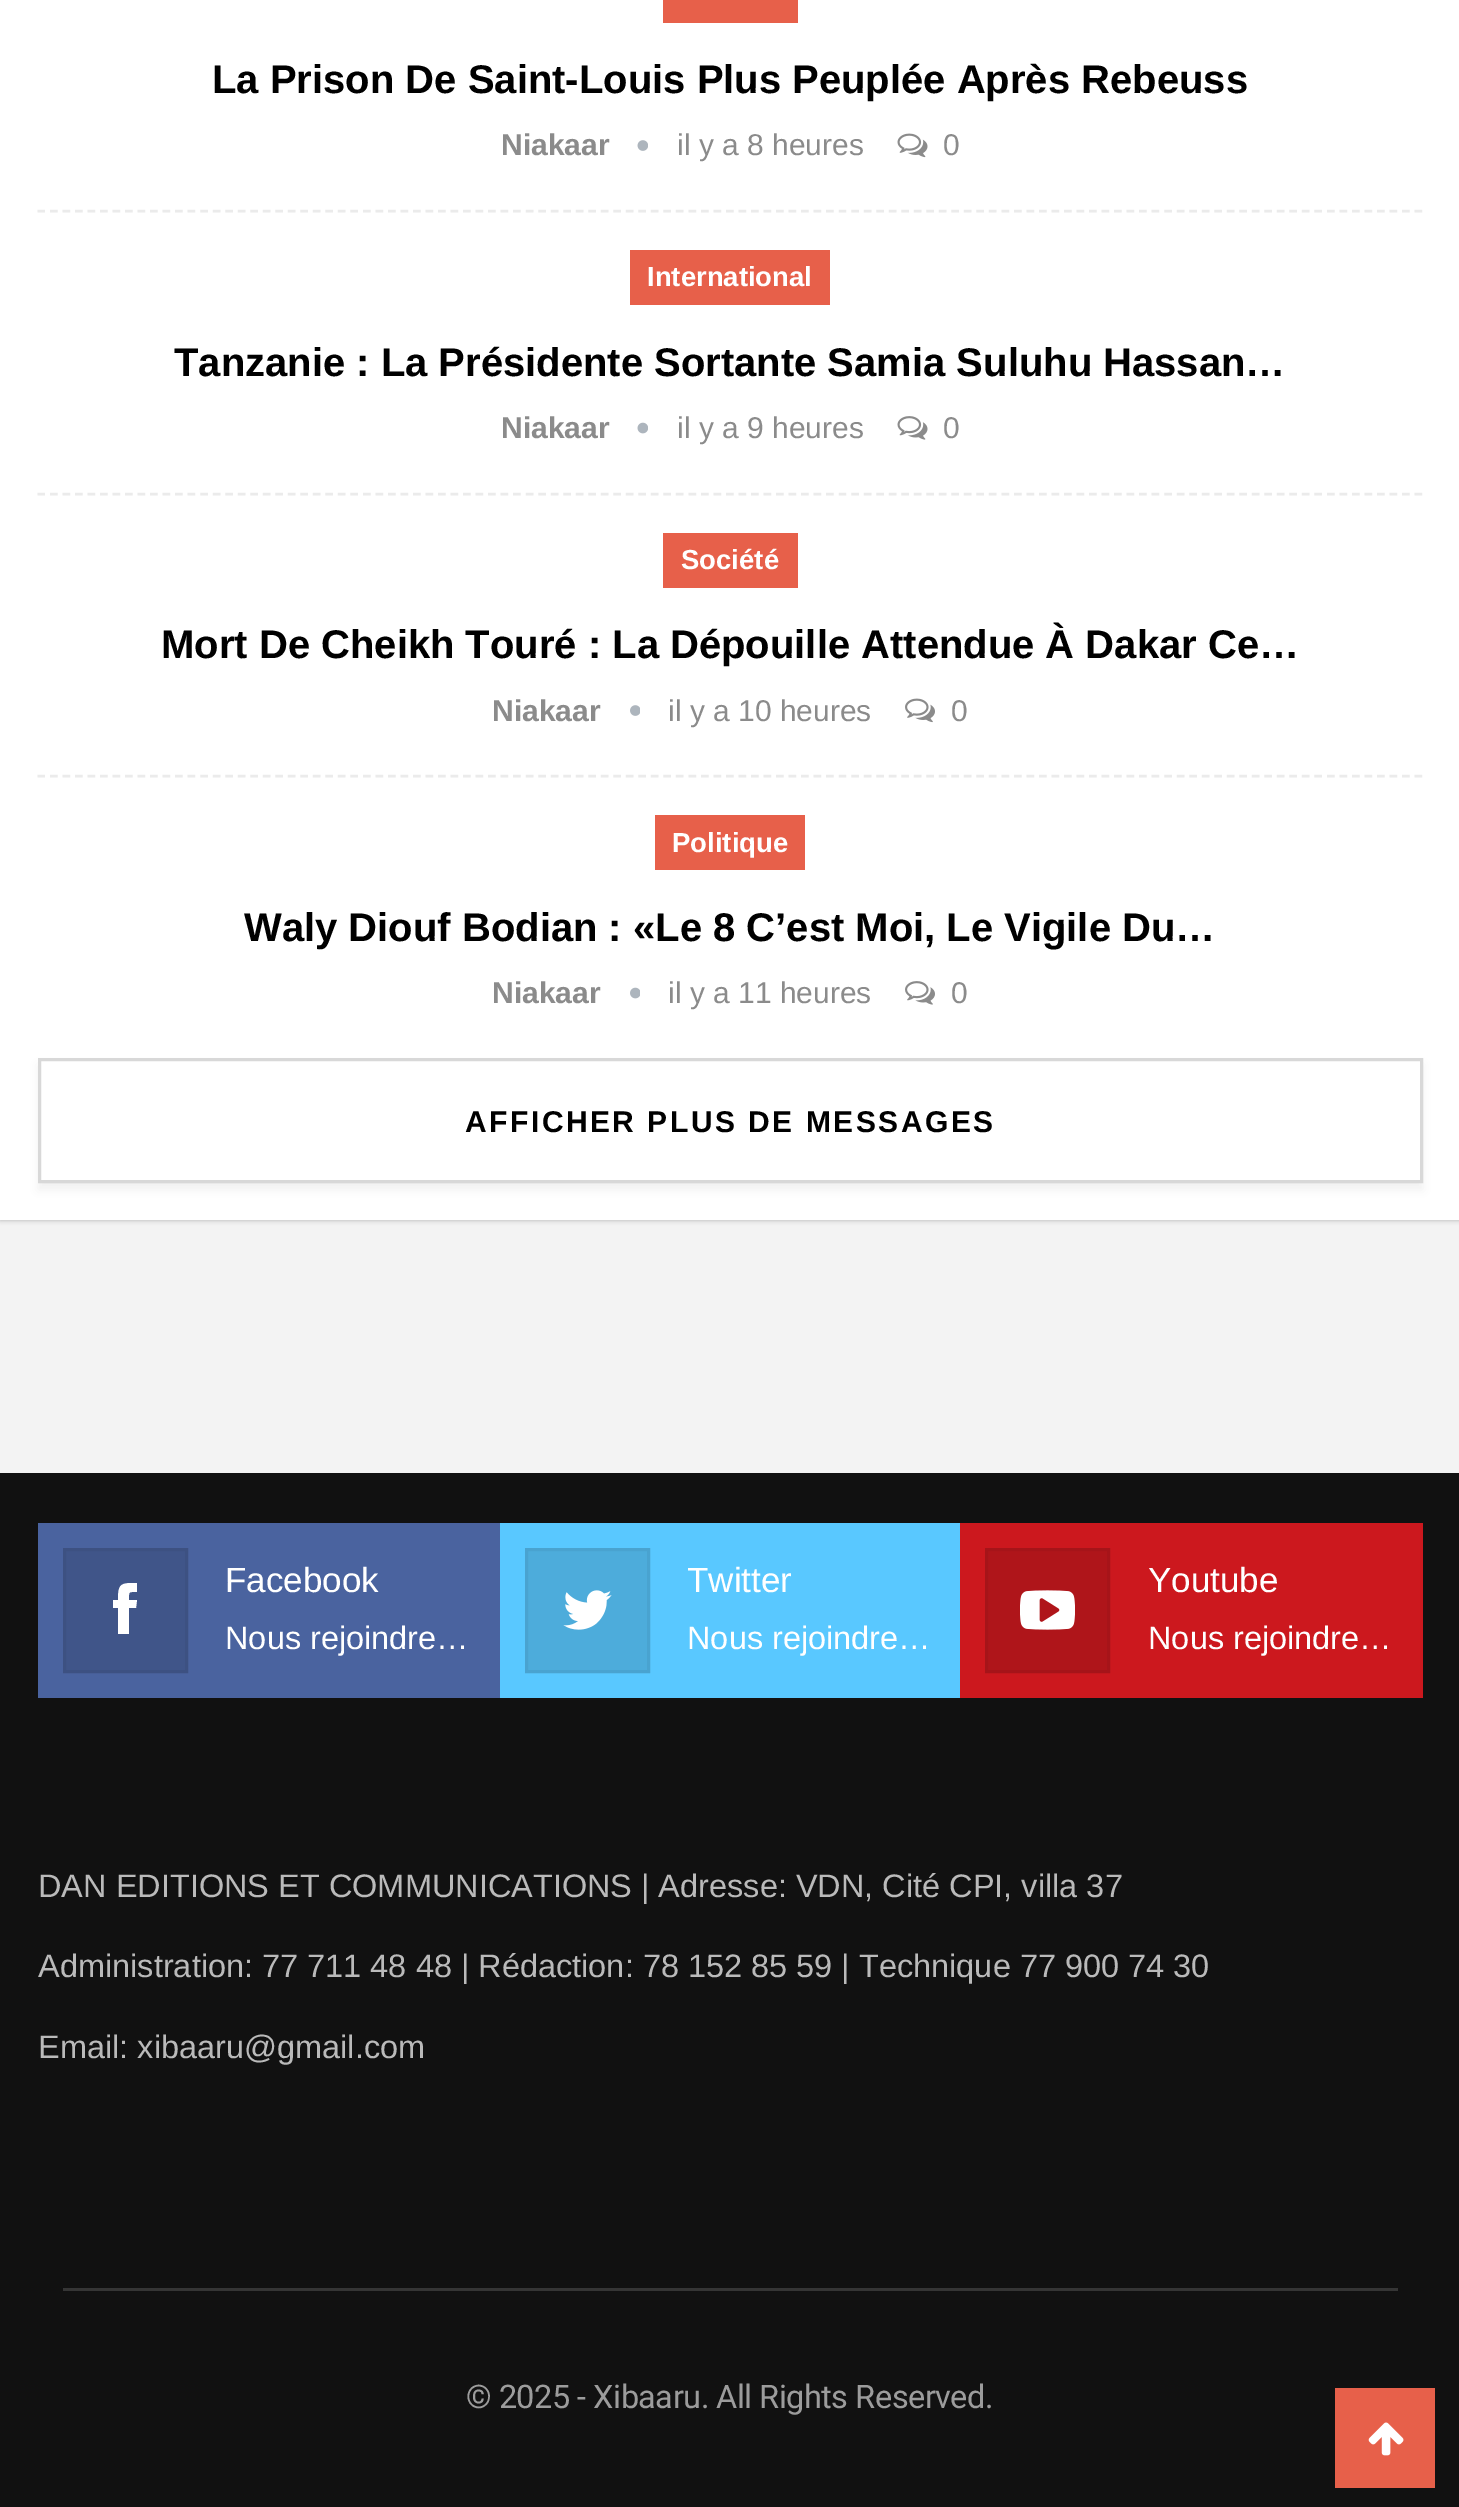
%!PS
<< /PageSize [1459 2507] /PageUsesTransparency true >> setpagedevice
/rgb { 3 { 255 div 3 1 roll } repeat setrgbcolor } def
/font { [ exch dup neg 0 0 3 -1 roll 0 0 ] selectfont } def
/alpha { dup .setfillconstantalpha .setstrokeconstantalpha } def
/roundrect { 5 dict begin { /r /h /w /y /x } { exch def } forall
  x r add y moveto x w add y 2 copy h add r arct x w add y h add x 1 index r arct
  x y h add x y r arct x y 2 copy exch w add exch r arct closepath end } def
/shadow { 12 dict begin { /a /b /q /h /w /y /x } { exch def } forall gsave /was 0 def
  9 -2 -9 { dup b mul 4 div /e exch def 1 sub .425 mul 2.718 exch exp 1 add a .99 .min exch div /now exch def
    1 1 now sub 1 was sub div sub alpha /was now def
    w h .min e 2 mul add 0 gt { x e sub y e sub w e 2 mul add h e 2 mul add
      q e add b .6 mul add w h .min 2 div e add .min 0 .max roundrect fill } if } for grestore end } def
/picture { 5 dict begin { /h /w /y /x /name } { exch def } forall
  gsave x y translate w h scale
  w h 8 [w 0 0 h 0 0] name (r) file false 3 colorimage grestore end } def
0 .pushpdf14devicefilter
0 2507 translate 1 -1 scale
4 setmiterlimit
243 243 243 rgb
0 0 1459 2507 rectfill
0 0 0 rgb
0 -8 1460 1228 0 2.5 0.27 shadow
255 255 255 rgb
0 0 1459 1220 rectfill
235 235 235 rgb
2.5 setlinewidth
[7.5 5.02] 0 setdash
37.5 211 moveto 1422.5 211 lineto stroke
231 96 74 rgb
663 0 135 23 rectfill
(img/1.rgb) 637 140 11 11 picture
(img/2.rgb) 897 133 31 25 picture
235 235 235 rgb
37.5 494 moveto 1422.5 494 lineto stroke
231 96 74 rgb
630 250 200 55 rectfill
(img/3.rgb) 637 422 11 12 picture
(img/4.rgb) 897 416 31 24 picture
235 235 235 rgb
37.5 776 moveto 1422.5 776 lineto stroke
231 96 74 rgb
663 533 135 55 rectfill
(img/5.rgb) 630 705 10 11 picture
(img/6.rgb) 905 698 30 25 picture
655 815 150 55 rectfill
(img/7.rgb) 630 987 10 12 picture
(img/8.rgb) 905 981 30 24 picture
gsave
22 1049 moveto 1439 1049 lineto 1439 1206 lineto 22 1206 lineto closepath 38 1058 moveto 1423 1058 lineto 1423 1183 lineto 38 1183 lineto closepath eoclip newpath
204 204 204 rgb
38 1065 1385 125 0 5 0.25 shadow
grestore
0.33 alpha
138 138 138 rgb
3 setlinewidth
[] 0 setdash
39.5 1059.5 1382 122 rectstroke
1 alpha
17 17 17 rgb
0 1473 1459 1034 rectfill
74 99 159 rgb
38 1523 462 175 rectfill
64 85 137 rgb
64.5 1549.5 moveto 186.5 1549.5 lineto 186.5 1671.5 lineto 64.5 1671.5 lineto closepath gsave fill grestore
61 81 130 rgb
stroke
255 255 255 rgb
129 1600 moveto 129 1591 128 1592 137 1592 curveto 137 1583 lineto 121 1583 118 1583 118 1600 curveto 113 1600 lineto 113 1608 lineto 118 1608 lineto 118 1634 lineto 129 1634 lineto 129 1608 lineto 136 1608 lineto 137 1600 lineto closepath fill
89 200 255 rgb
500 1523 460 175 rectfill
77 172 219 rgb
526.5 1549.5 moveto 648.5 1549.5 lineto 648.5 1671.5 lineto 526.5 1671.5 lineto closepath gsave fill grestore
73 163 208 rgb
stroke
(img/9.rgb) 563 1590 49 40 picture
204 24 30 rgb
960 1523 463 175 rectfill
175 21 26 rgb
986.5 1549.5 moveto 1108.5 1549.5 lineto 1108.5 1671.5 lineto 986.5 1671.5 lineto closepath gsave fill grestore
166 20 25 rgb
stroke
(img/10.rgb) 1020 1590 55 40 picture
53 53 53 rgb
63 2288 1335 3 rectfill
231 96 74 rgb
1335 2388 100 100 rectfill
(img/11.rgb) 1368 2422 36 34 picture
/Arimo-Bold 40 font
0 0 0 rgb
212 93 moveto (La Prison De Saint-Louis Plus Peuplée Après Rebeuss) show
/Arimo-Bold 30 font
139 139 139 rgb
501 155 moveto (Niakaar) show
/Arimo-Regular 30 font
677 155 moveto (il y a 8 heures) show
943 155 moveto (0) show
/Arimo-Bold 27.5 font
255 255 255 rgb
647 286 moveto (International) show
/Arimo-Bold 40 font
0 0 0 rgb
174 376 moveto (Tanzanie : La Présidente Sortante Samia Suluhu Hassan…) show
/Arimo-Bold 30 font
139 139 139 rgb
501 438 moveto (Niakaar) show
/Arimo-Regular 30 font
677 438 moveto (il y a 9 heures) show
943 438 moveto (0) show
/Arimo-Bold 27.5 font
255 255 255 rgb
681 569 moveto (Société) show
/Arimo-Bold 40 font
0 0 0 rgb
161 658 moveto (Mort De Cheikh Touré : La Dépouille Attendue À Dakar Ce…) show
/Arimo-Bold 30 font
139 139 139 rgb
492 721 moveto (Niakaar) show
/Arimo-Regular 30 font
668 721 moveto (il y a 10 heures) show
951 721 moveto (0) show
/Arimo-Bold 27.5 font
255 255 255 rgb
672 852 moveto (Politique) show
/Arimo-Bold 40 font
0 0 0 rgb
244 941 moveto (Waly Diouf Bodian : «Le 8 C’est Moi, Le Vigile Du…) show
/Arimo-Bold 30 font
139 139 139 rgb
492 1003 moveto (Niakaar) show
/Arimo-Regular 30 font
668 1003 moveto (il y a 11 heures) show
951 1003 moveto (0) show
/Arimo-Bold 30 font
0 0 0 rgb
465 1132 moveto 2.5 0 (AFFICHER PLUS DE MESSAGES) ashow
/LiberationSans-Regular 35 font
255 255 255 rgb
225 1592 moveto (Facebook) show
/LiberationSans-Regular 32.5 font
225 1649 moveto (Nous rejoindre…) show
gsave
688 1553 247 60 rectclip
/LiberationSans-Regular 35 font
687 1592 moveto (Twitter) show
grestore
687 1649 moveto (Nous rejoindre…) show
/LiberationSans-Regular 35 font
1148 1592 moveto (Youtube) show
/LiberationSans-Regular 32.5 font
1148 1649 moveto (Nous rejoindre…) show
/Arimo-Regular 32.5 font
186 186 186 rgb
[
  [(DAN EDITIONS ET COMMUNICATIONS | Adresse: VDN, Cité CPI, villa 37) 38 1897]
  [(Administration: 77 711 48 48 | Rédaction: 78 152 85 59 | Technique 77 900 74 30) 38 1977]
  [(Email: xibaaru@gmail.com) 38 2058]
] { aload pop moveto show } forall
/Roboto-Regular 32.5 font
156 156 156 rgb
466 2408 moveto -0.5 0 (© 2025 - Xibaaru. All Rights Reserved.) ashow
.poppdf14devicefilter showpage
